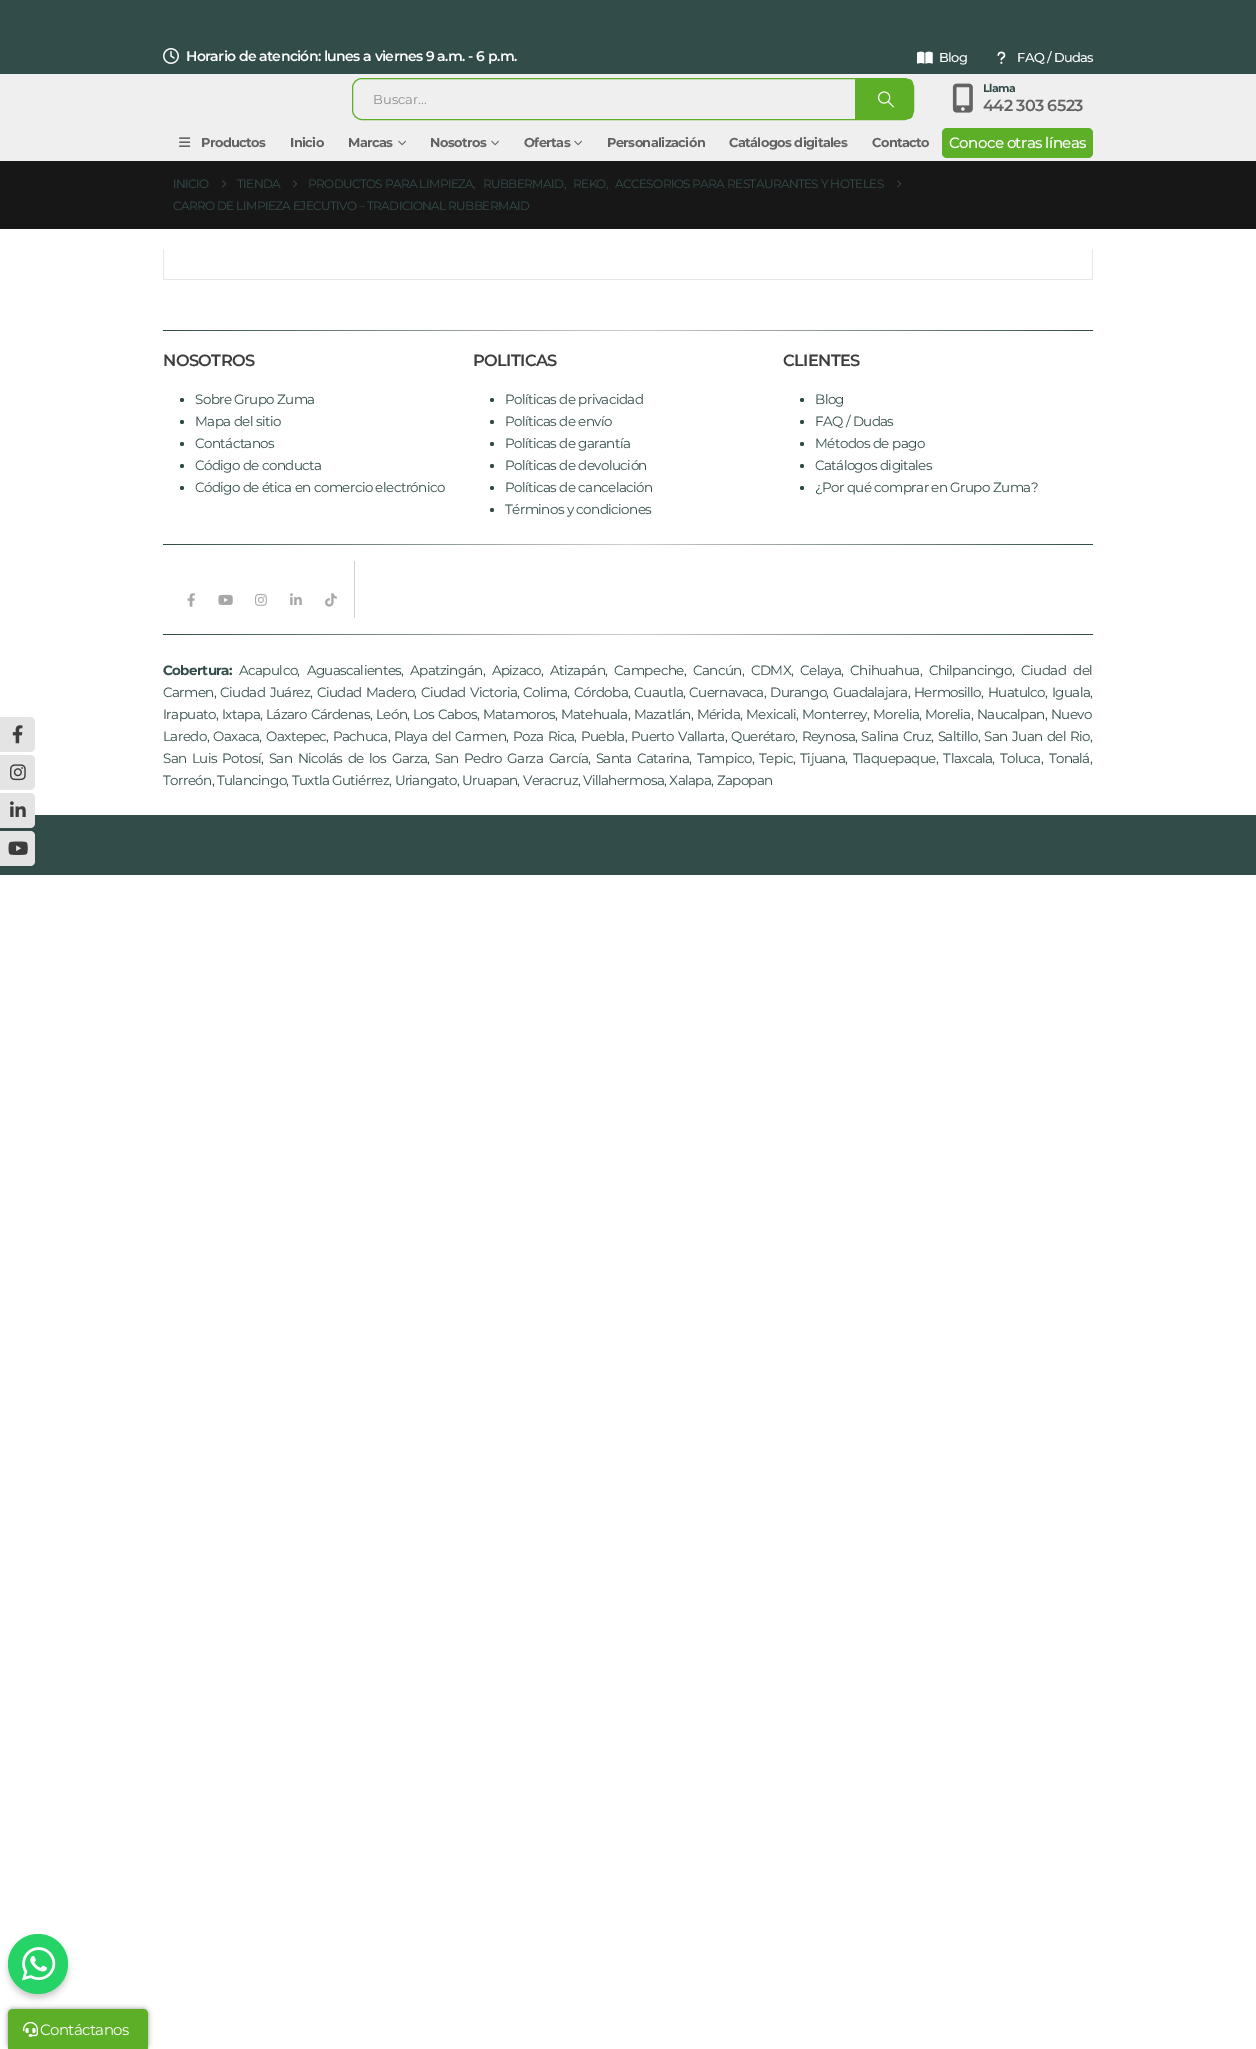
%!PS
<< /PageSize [1256 2049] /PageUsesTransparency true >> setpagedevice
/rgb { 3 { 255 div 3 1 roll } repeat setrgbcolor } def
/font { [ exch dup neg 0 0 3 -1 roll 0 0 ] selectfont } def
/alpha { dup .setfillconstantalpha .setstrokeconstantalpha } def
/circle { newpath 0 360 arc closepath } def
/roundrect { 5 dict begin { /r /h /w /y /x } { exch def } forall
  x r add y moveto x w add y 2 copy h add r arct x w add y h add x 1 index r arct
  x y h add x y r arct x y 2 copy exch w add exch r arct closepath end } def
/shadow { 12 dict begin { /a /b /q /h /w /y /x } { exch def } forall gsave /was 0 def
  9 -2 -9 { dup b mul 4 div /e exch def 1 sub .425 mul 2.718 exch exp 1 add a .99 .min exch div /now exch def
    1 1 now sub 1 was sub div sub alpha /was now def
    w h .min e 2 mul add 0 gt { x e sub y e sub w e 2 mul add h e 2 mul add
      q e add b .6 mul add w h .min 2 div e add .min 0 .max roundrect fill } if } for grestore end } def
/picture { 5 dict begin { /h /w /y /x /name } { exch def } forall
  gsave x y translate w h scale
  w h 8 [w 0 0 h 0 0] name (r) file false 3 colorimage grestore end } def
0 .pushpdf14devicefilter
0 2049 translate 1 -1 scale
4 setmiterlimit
255 255 255 rgb
0 0 1256 2049 rectfill
50 76 74 rgb
0 0 1256 74 rectfill
(img/1.rgb) 163 48 16 16 picture
47 71 70 rgb
530 56 1 1 rectfill
(img/2.rgb) 917 51 16 13 picture
(img/3.rgb) 997 51 9 13 picture
239 239 239 rgb
0 74 1256 87 rectfill
93 175 40 rgb
352.5 78.5 561 41 9.5 roundrect stroke
855 79 moveto 908 79 lineto 911 79 913 81 913 84 curveto 913 114 lineto 913 117 911 119 908 119 curveto 855 119 lineto closepath fill
(img/4.rgb) 878 91 16 17 picture
(img/5.rgb) 952 83 21 30 picture
(img/6.rgb) 179 137 12 10 picture
(img/7.rgb) 398 140 8 6 picture
(img/7.rgb) 491 140 8 6 picture
(img/7.rgb) 574 140 8 6 picture
942 128 151 30 5 roundrect fill
23 23 23 rgb
0 161 1256 68 rectfill
(img/8.rgb) 222 180 5 8 picture
(img/8.rgb) 293 180 5 8 picture
(img/8.rgb) 897 180 5 8 picture
[
  [1092 249 1 31 231 231 231]
  [163 279 930 1 231 231 231]
  [163 249 1 31 231 231 231]
] { aload pop rgb rectfill } forall
gsave 163 330 moveto 1093 330 lineto 1093 331 lineto 163 331 lineto closepath clip newpath
<< /ShadingType 2 /ColorSpace /DeviceRGB /Coords [163 331 1093 330] /Extend [true true] /Function << /FunctionType 3 /Domain [0 1] /Functions [<< /FunctionType 2 /Domain [0 1] /C0 [0.196 0.298 0.29] /C1 [0.812 0.812 0.812] /N 1 >> << /FunctionType 2 /Domain [0 1] /C0 [0.812 0.812 0.812] /C1 [0.196 0.298 0.29] /N 1 >>] /Bounds [0.5] /Encode [0 1 0 1] >> >> shfill grestore
50 76 74 rgb
182 400 2 circle fill
182 422 2 circle fill
182 444 2 circle fill
182 466 2 circle fill
182 488 2 circle fill
492 400 2 circle fill
492 422 2 circle fill
492 444 2 circle fill
492 466 2 circle fill
492 488 2 circle fill
492 510 2 circle fill
802 400 2 circle fill
802 422 2 circle fill
802 444 2 circle fill
802 466 2 circle fill
802 488 2 circle fill
gsave 163 544 moveto 1093 544 lineto 1093 545 lineto 163 545 lineto closepath clip newpath
<< /ShadingType 2 /ColorSpace /DeviceRGB /Coords [163 545 1093 545] /Extend [true true] /Function << /FunctionType 3 /Domain [0 1] /Functions [<< /FunctionType 2 /Domain [0 1] /C0 [0.196 0.298 0.29] /C1 [0.812 0.812 0.812] /N 1 >> << /FunctionType 2 /Domain [0 1] /C0 [0.812 0.812 0.812] /C1 [0.196 0.298 0.29] /N 1 >>] /Bounds [0.5] /Encode [0 1 0 1] >> >> shfill grestore
207 207 207 rgb
354 561 1 57 rectfill
(img/9.rgb) 187 593 8 14 picture
(img/10.rgb) 218 594 15 11 picture
(img/11.rgb) 255 594 12 12 picture
(img/12.rgb) 290 593 12 12 picture
(img/13.rgb) 325 593 12 14 picture
gsave 163 634 moveto 1093 634 lineto 1093 635 lineto 163 635 lineto closepath clip newpath
<< /ShadingType 2 /ColorSpace /DeviceRGB /Coords [163 635 1093 635] /Extend [true true] /Function << /FunctionType 3 /Domain [0 1] /Functions [<< /FunctionType 2 /Domain [0 1] /C0 [0.196 0.298 0.29] /C1 [0.812 0.812 0.812] /N 1 >> << /FunctionType 2 /Domain [0 1] /C0 [0.812 0.812 0.812] /C1 [0.196 0.298 0.29] /N 1 >>] /Bounds [0.5] /Encode [0 1 0 1] >> >> shfill grestore
50 76 74 rgb
0 815 1256 60 rectfill
228 228 228 rgb
0 717 moveto 30 717 lineto 33 717 35 719 35 722 curveto 35 747 lineto 35 750 33 752 30 752 curveto 0 752 lineto closepath fill
(img/14.rgb) 12 725 11 19 picture
0 755 moveto 30 755 lineto 33 755 35 757 35 760 curveto 35 785 lineto 35 788 33 790 30 790 curveto 0 790 lineto closepath fill
(img/15.rgb) 10 764 16 17 picture
0 793 moveto 30 793 lineto 33 793 35 795 35 798 curveto 35 823 lineto 35 826 33 828 30 828 curveto 0 828 lineto closepath fill
(img/16.rgb) 10 801 16 16 picture
0 831 moveto 30 831 lineto 33 831 35 833 35 836 curveto 35 861 lineto 35 864 33 866 30 866 curveto 0 866 lineto closepath fill
(img/17.rgb) 8 841 20 14 picture
0 0 0 rgb
8 1938 60 60 30 3 0.2 shadow
37 211 102 rgb
38 1964 30 circle fill
(img/18.rgb) 22 1947 34 34 picture
0 0 0 rgb
8 2009 140 40 5 2.5 0.4 shadow
93 175 40 rgb
13 2009 moveto 143 2009 lineto 146 2009 148 2011 148 2014 curveto 148 2049 lineto 8 2049 lineto 8 2014 lineto 8 2011 10 2009 13 2009 curveto closepath fill
(img/19.rgb) 23 2021 15 16 picture
/Montserrat-SemiBold 14 font
255 255 255 rgb
186 61 moveto -0.6 0 (Horario de atención: lunes a viernes 9 a.m. - 6 p.m.) ashow
/Montserrat-Medium 13 font
939 62 moveto -0.6 0 (Blog) ashow
1017 62 moveto -0.6 0 (FAQ / Dudas) ashow
/Montserrat-Regular 13 font
142 141 141 rgb
373 104 moveto (Buscar...) show
/Montserrat-Bold 11 font
50 76 74 rgb
983 92 moveto -0.6 0 (Llama) ashow
/Montserrat-SemiBold 16 font
100 99 99 rgb
983 111 moveto -0.6 0 (442 303 6523) ashow
/Montserrat-Bold 12.9 font
201 147 moveto -0.6 0 (Productos) ashow
290 147 moveto -0.6 0 (Inicio) ashow
348 147 moveto -0.6 0 (Marcas) ashow
430 147 moveto -0.6 0 (Nosotros) ashow
524 147 moveto -0.6 0 (Ofertas) ashow
607 147 moveto -0.6 0 (Personalización) ashow
729 147 moveto -0.6 0 (Catálogos digitales) ashow
872 147 moveto -0.6 0 (Contacto) ashow
/Montserrat-Medium 15 font
255 255 255 rgb
949 148 moveto -0.6 0 (Conoce otras líneas) ashow
/Montserrat-Regular 12 font
50 76 74 rgb
173 188 moveto -0.6 0 (INICIO) ashow
237 188 moveto -0.6 0 (TIENDA) ashow
308 188 moveto -0.6 0 (PRODUCTOS PARA LIMPIEZA,) ashow
483 188 moveto -0.6 0 (RUBBERMAID,) ashow
573 188 moveto -0.6 0 (REKO,) ashow
615 188 moveto -0.6 0 (ACCESORIOS PARA RESTAURANTES Y HOTELES) ashow
173 210 moveto -0.6 0 (CARRO DE LIMPIEZA EJECUTIVO – TRADICIONAL RUBBERMAID) ashow
/Montserrat-SemiBold 16.25 font
61 61 61 rgb
163 366 moveto -0.6 0 (NOSOTROS) ashow
/Montserrat-Regular 13.5 font
50 76 74 rgb
195 404 moveto -0.6 0 (Sobre Grupo Zuma) ashow
195 426 moveto -0.6 0 (Mapa del sitio) ashow
195 448 moveto -0.6 0 (Contáctanos) ashow
195 470 moveto -0.6 0 (Código de conducta) ashow
195 492 moveto -0.6 0 (Código de ética en comercio electrónico) ashow
/Montserrat-SemiBold 16.25 font
61 61 61 rgb
473 366 moveto -0.6 0 (POLITICAS) ashow
/Montserrat-Regular 13.5 font
50 76 74 rgb
505 404 moveto -0.6 0 (Políticas de privacidad) ashow
505 426 moveto -0.6 0 (Políticas de envío) ashow
505 448 moveto -0.6 0 (Políticas de garantía) ashow
505 470 moveto -0.6 0 (Políticas de devolución) ashow
505 492 moveto -0.6 0 (Políticas de cancelación) ashow
505 514 moveto -0.6 0 (Términos y condiciones) ashow
/Montserrat-SemiBold 16.25 font
61 61 61 rgb
783 366 moveto -0.6 0 (CLIENTES) ashow
/Montserrat-Regular 13.5 font
50 76 74 rgb
815 404 moveto -0.6 0 (Blog) ashow
815 426 moveto -0.6 0 (FAQ / Dudas) ashow
815 448 moveto -0.6 0 (Métodos de pago) ashow
815 470 moveto -0.6 0 (Catálogos digitales) ashow
815 492 moveto -0.6 0 (¿Por qué comprar en Grupo Zuma?) ashow
/Montserrat-Bold 13.5 font
163 675 moveto -0.6 0 (Cobertura:) ashow
/Montserrat-Regular 13.5 font
239 675 moveto 4 0 32 -0.6 0 (Acapulco, Aguascalientes, Apatzingán, Apizaco, Atizapán, Campeche, Cancún, CDMX, Celaya, Chihuahua, Chilpancingo, Ciudad del) awidthshow
163 697 moveto 1.3 0 32 -0.6 0 (Carmen, Ciudad Juárez, Ciudad Madero, Ciudad Victoria, Colima, Córdoba, Cuautla, Cuernavaca, Durango, Guadalajara, Hermosillo, Huatulco, Iguala,) awidthshow
163 719 moveto 0.75 0 32 -0.6 0 (Irapuato, Ixtapa, Lázaro Cárdenas, León, Los Cabos, Matamoros, Matehuala, Mazatlán, Mérida, Mexicali, Monterrey, Morelia, Morelia, Naucalpan, Nuevo) awidthshow
163 741 moveto 1.3 0 32 -0.6 0 (Laredo, Oaxaca, Oaxtepec, Pachuca, Playa del Carmen, Poza Rica, Puebla, Puerto Vallarta, Querétaro, Reynosa, Salina Cruz, Saltillo, San Juan del Rio,) awidthshow
163 763 moveto 2.5 0 32 -0.6 0 (San Luis Potosí, San Nicolás de los Garza, San Pedro Garza García, Santa Catarina, Tampico, Tepic, Tijuana, Tlaquepaque, Tlaxcala, Toluca, Tonalá,) awidthshow
163 785 moveto -0.6 0 (Torreón, Tulancingo, Tuxtla Gutiérrez, Uriangato, Uruapan, Veracruz, Villahermosa, Xalapa, Zapopan) ashow
/Montserrat-Regular 15 font
255 255 255 rgb
40 2035 moveto -0.6 0 (Contáctanos) ashow
.poppdf14devicefilter showpage
